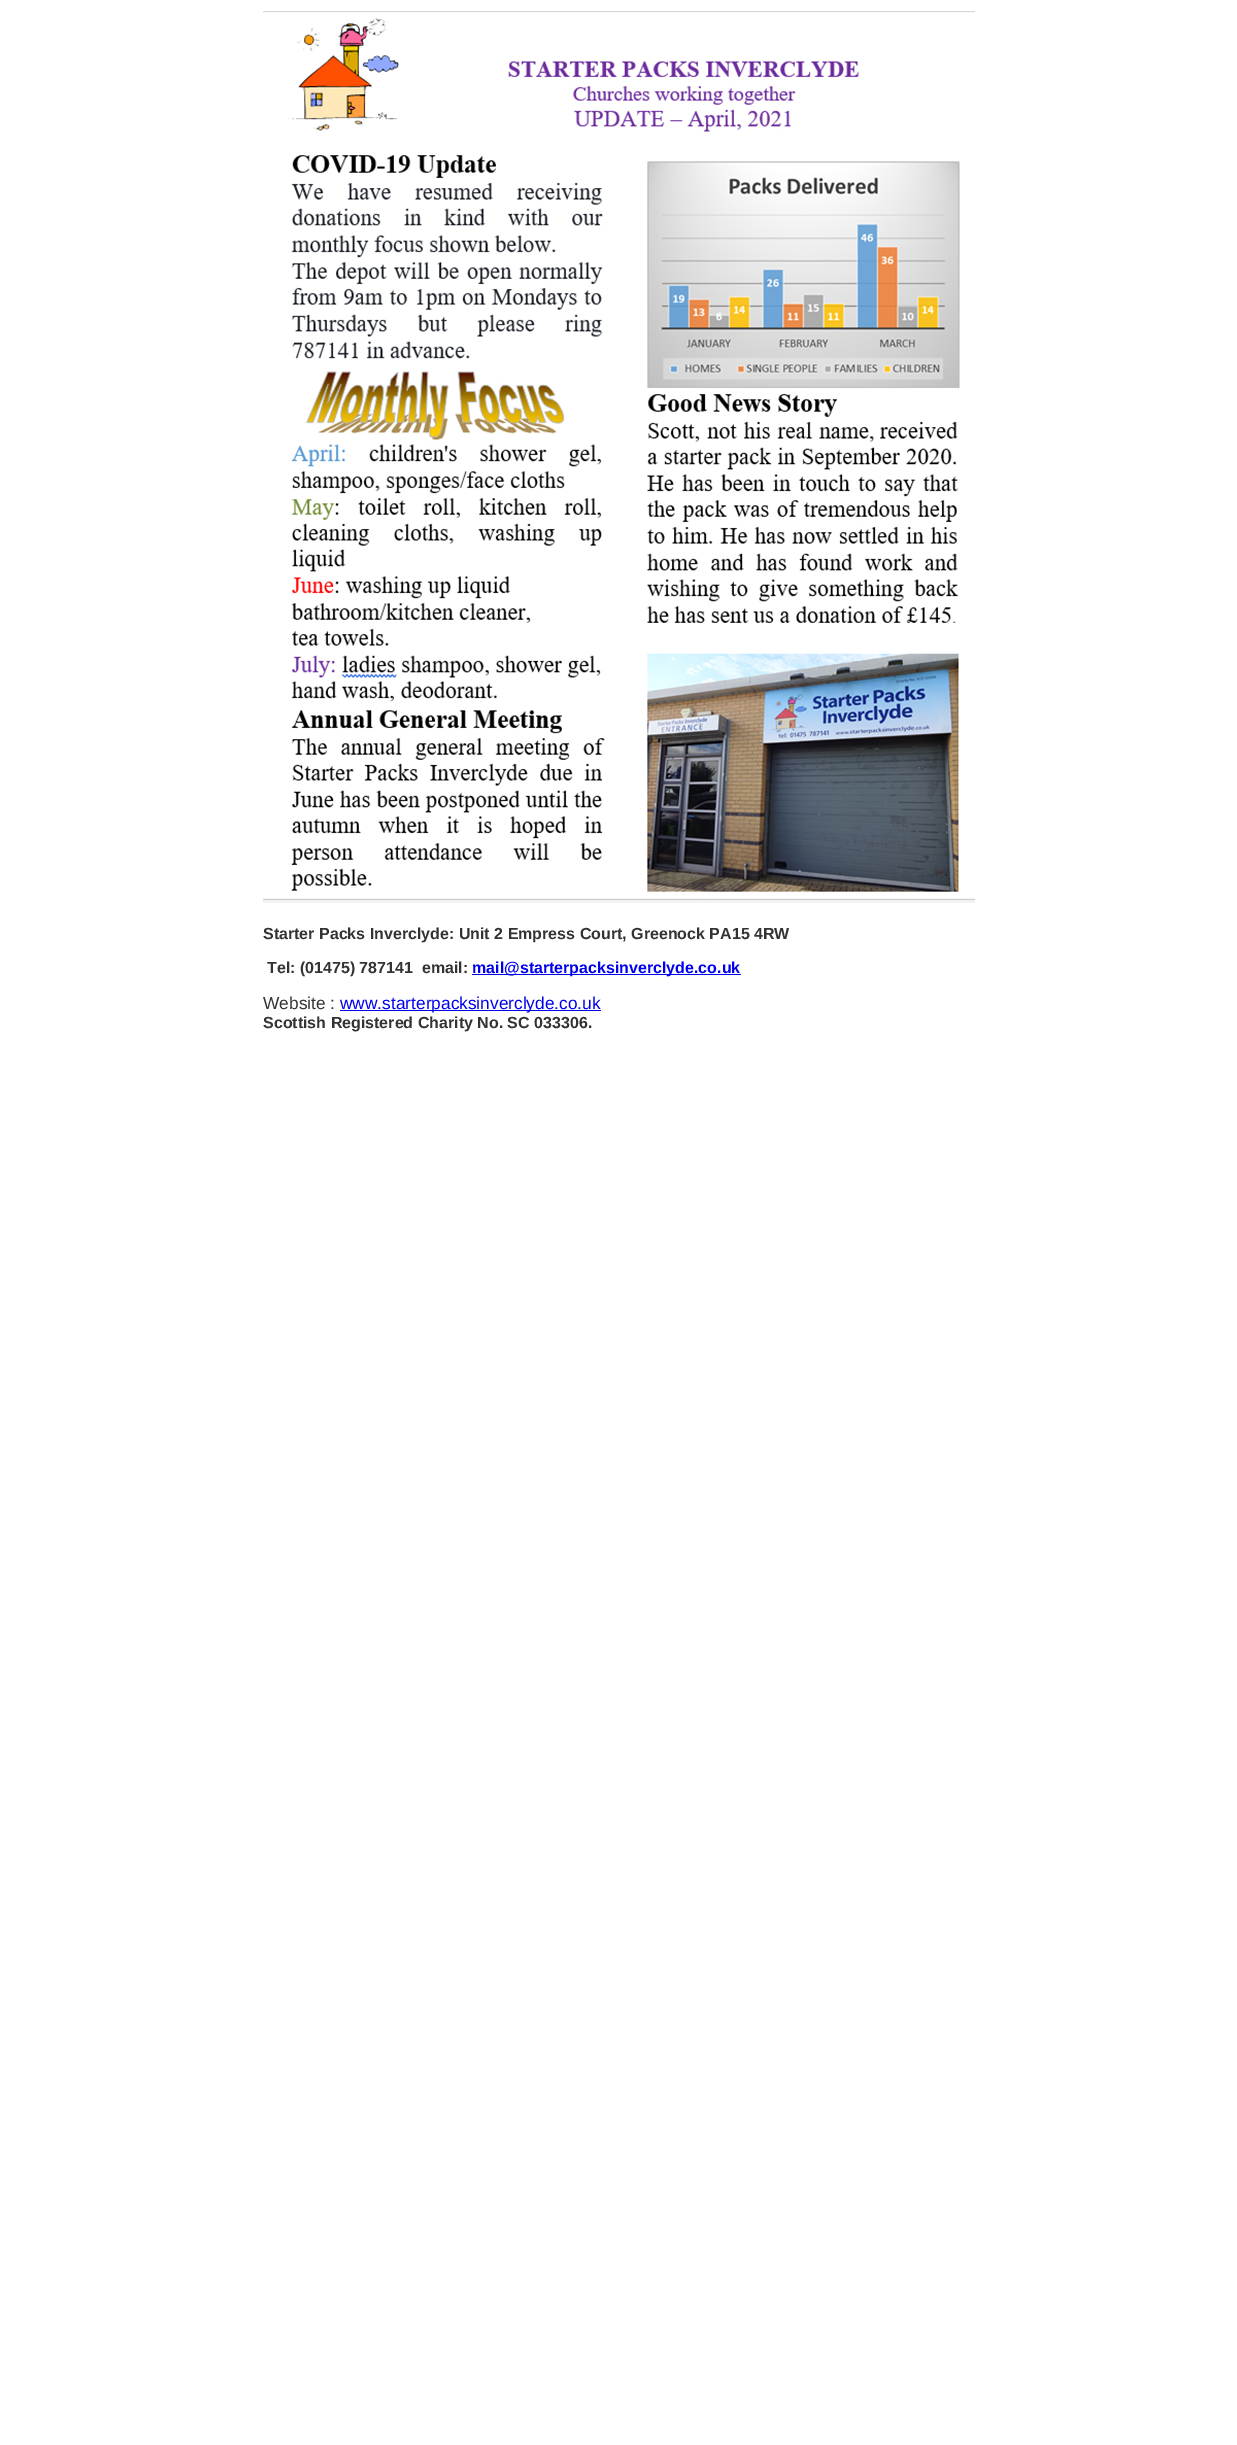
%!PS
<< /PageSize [1237 2445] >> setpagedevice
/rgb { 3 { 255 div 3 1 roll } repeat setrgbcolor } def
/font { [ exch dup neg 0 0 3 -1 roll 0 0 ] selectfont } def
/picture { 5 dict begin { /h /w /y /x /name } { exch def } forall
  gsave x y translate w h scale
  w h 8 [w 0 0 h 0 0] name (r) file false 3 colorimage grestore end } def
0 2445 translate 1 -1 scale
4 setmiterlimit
255 255 255 rgb
0 0 1237 2445 rectfill
(img/1.rgb) 263 11 712 892 picture
0 0 238 rgb
472 974 269 1 rectfill
340 1010 261 1 rectfill
/LiberationSans-Bold 16 font
51 51 51 rgb
263 939 moveto (Starter Packs Inverclyde: Unit 2 Empress Court, Greenock PA15 4RW) show
267 973 moveto (Tel: \(01475\) 787141  email:) show
0 0 238 rgb
472 973 moveto (mail@starterpacksinverclyde.co.uk) show
/LiberationSans-Regular 17.3 font
51 51 51 rgb
263 1009 moveto (Website :) show
0 0 238 rgb
340 1009 moveto (www.starterpacksinverclyde.co.uk) show
/LiberationSans-Bold 16 font
51 51 51 rgb
263 1028 moveto (Scottish Registered Charity No. SC 033306.) show
showpage
